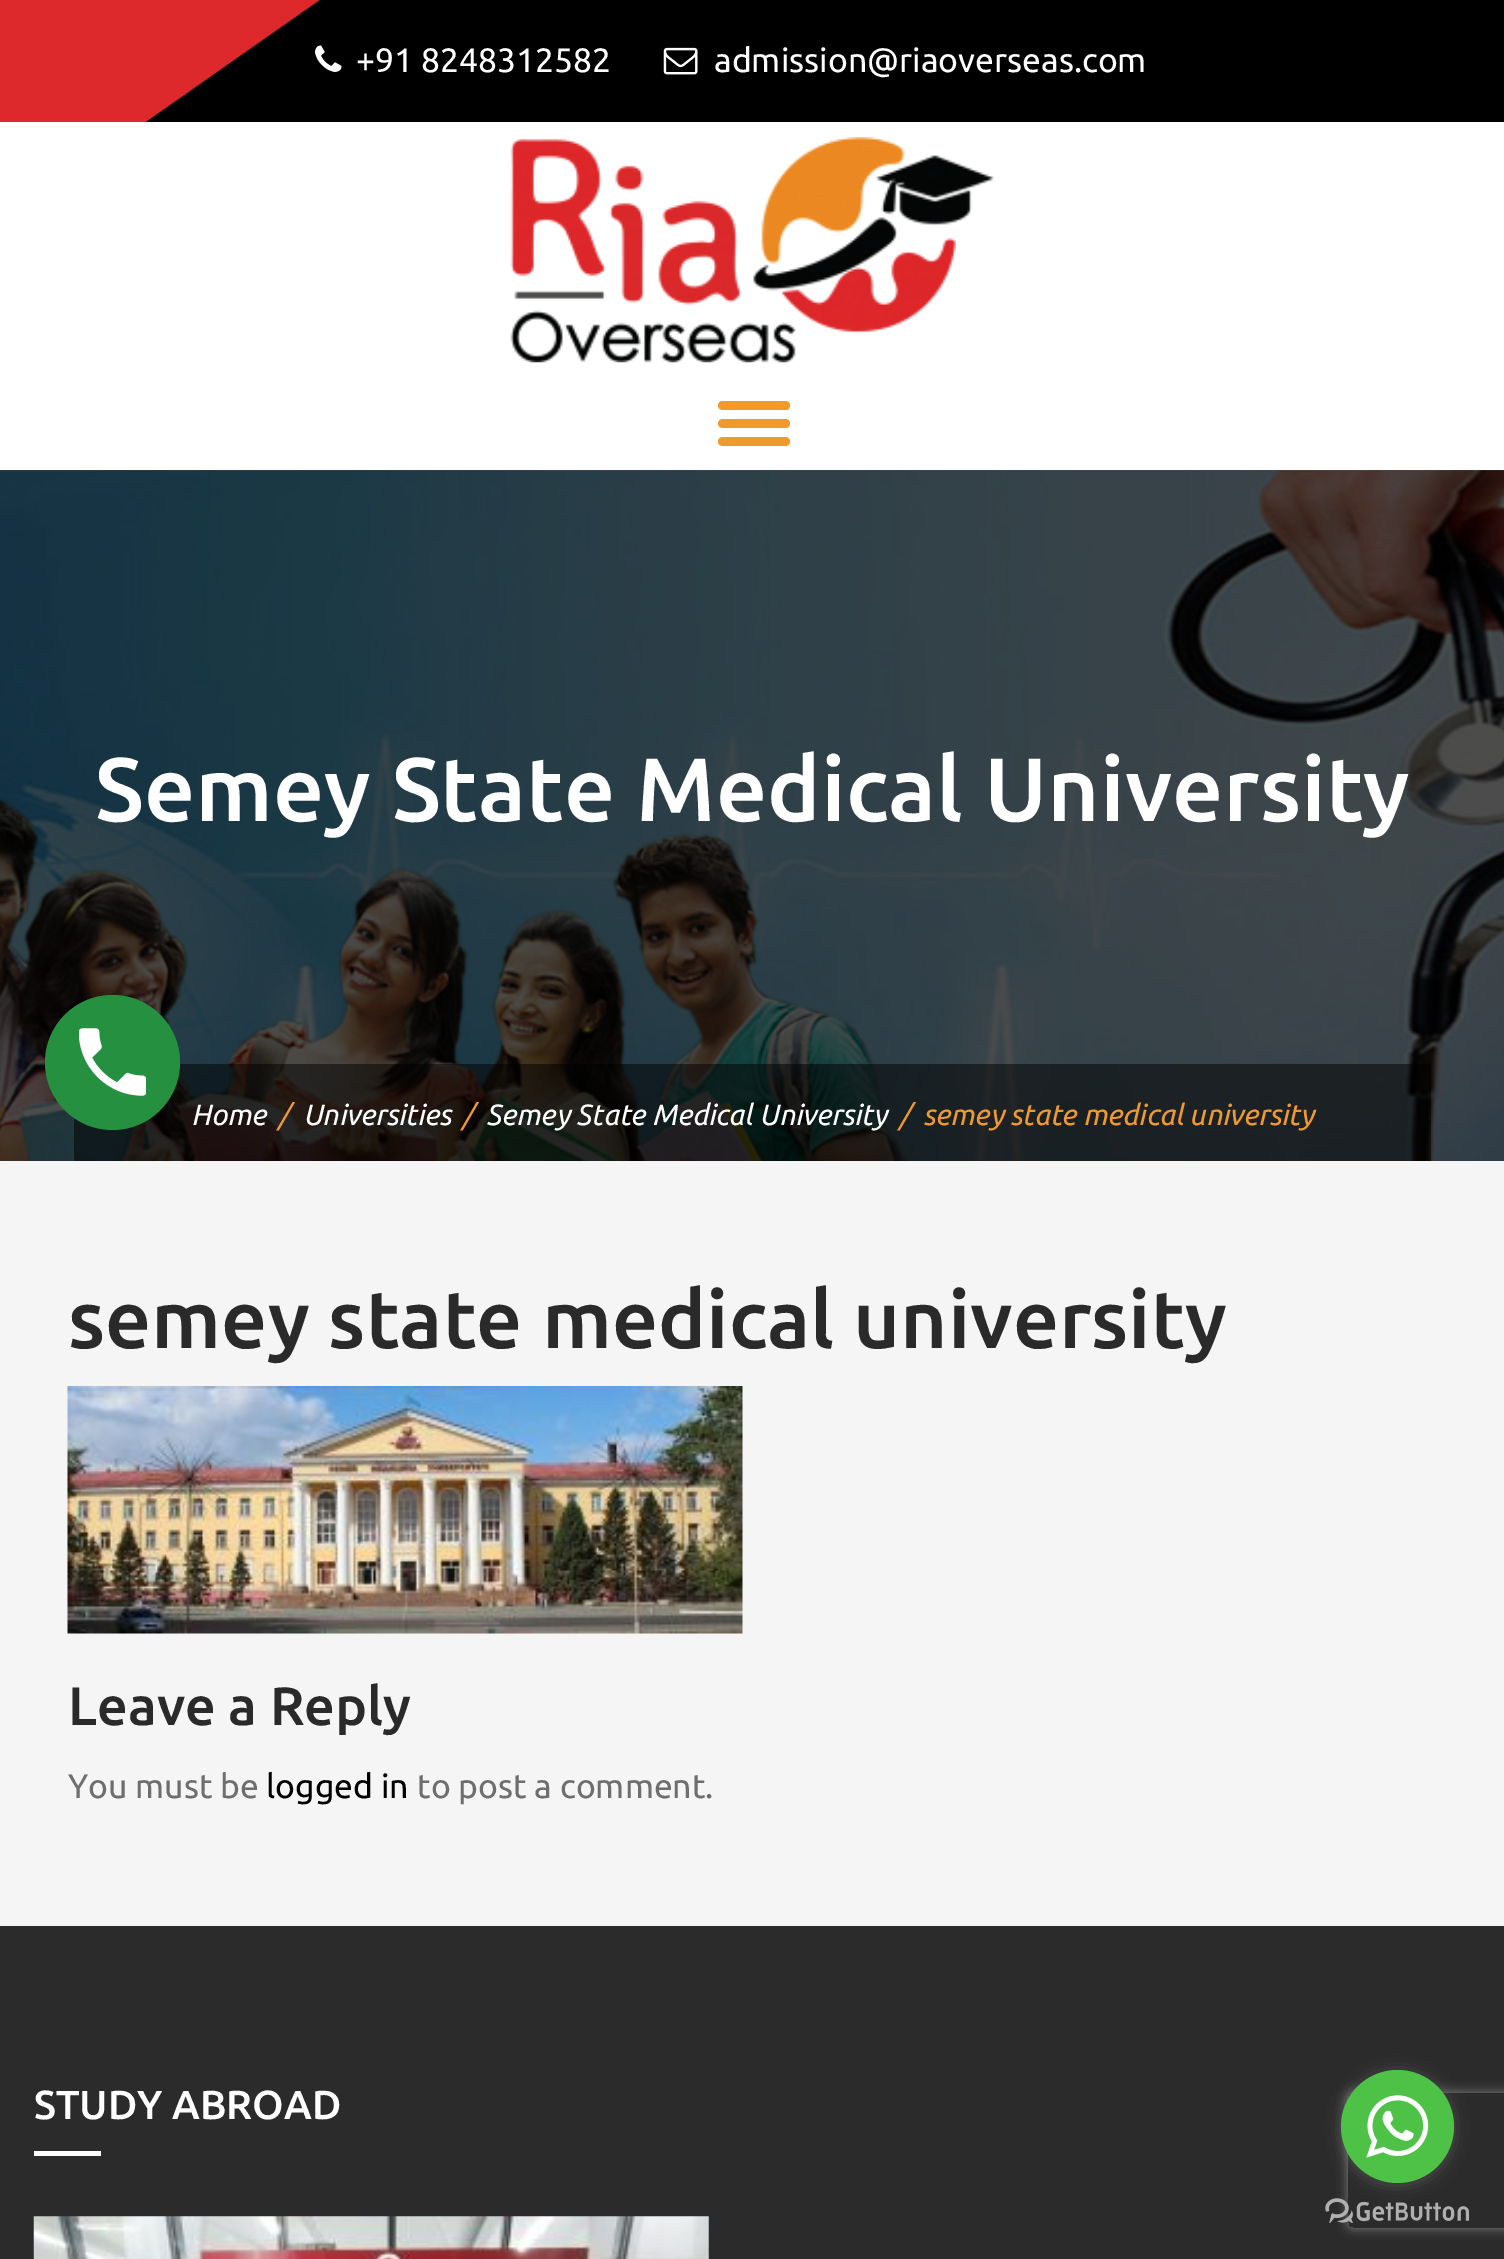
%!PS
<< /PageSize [1504 2259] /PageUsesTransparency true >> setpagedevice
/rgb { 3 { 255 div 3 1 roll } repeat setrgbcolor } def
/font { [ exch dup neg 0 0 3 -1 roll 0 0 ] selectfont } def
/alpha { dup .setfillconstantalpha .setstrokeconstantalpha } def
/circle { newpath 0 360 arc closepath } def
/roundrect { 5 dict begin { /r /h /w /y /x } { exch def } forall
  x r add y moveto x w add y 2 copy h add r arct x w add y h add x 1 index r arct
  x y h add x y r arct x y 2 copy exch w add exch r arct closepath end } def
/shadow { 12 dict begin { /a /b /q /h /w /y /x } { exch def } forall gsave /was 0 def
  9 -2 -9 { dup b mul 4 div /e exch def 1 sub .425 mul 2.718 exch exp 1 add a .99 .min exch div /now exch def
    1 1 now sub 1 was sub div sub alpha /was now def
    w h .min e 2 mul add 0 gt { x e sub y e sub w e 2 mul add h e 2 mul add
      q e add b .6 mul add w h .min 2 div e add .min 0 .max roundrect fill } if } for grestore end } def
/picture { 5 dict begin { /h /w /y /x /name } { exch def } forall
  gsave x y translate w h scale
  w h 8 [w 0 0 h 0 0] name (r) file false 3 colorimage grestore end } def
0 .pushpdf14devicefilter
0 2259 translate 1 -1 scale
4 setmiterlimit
255 255 255 rgb
0 0 1504 2259 rectfill
221 41 43 rgb
0 0 320 122 rectfill
0 0 0 rgb
320 0 moveto 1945 0 lineto 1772 122 lineto 146 122 lineto closepath fill
(img/1.rgb) 315 45 27 27 picture
(img/2.rgb) 663 47 35 28 picture
(img/3.rgb) 510 137 485 226 picture
241 153 45 rgb
718 401 72 9 4.5 roundrect fill
718 419 72 9 4.5 roundrect fill
718 437 72 9 4.5 roundrect fill
(img/4.rgb) 0 470 1504 691 picture
0.5 alpha
0 0 0 rgb
74 1064 1357 97 rectfill
1 alpha
38 144 65 rgb
112.5 1062.5 67.5 circle fill
(img/5.rgb) 79 1028 67 68 picture
245 245 245 rgb
0 1161 1504 765 rectfill
(img/6.rgb) 67 1386 676 248 picture
43 43 43 rgb
0 1926 1504 333 rectfill
gsave
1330 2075 moveto 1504 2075 lineto 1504 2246 lineto 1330 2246 lineto closepath 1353 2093 moveto 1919 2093 lineto 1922 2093 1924 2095 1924 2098 curveto 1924 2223 lineto 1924 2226 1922 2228 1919 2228 curveto 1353 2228 lineto 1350 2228 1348 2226 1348 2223 curveto 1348 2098 lineto 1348 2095 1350 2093 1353 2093 curveto closepath eoclip newpath
128 128 128 rgb
1348 2093 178 135 5 5.5 1 shadow
grestore
(img/8.rgb) 1325 2198 144 25 picture
136 136 136 rgb
1341 2072 113 113 56.5 8 0.4 shadow
77 194 71 rgb
1397.5 2126.5 56.5 circle fill
(img/7.rgb) 1366 2095 63 63 picture
255 255 255 rgb
34 2151 67 5 rectfill
(img/9.rgb) 33 2216 676 43 picture
/Ubuntu-Regular 33.75 font
356 72 moveto (+91 8248312582) show
714 72 moveto (admission@riaoverseas.com) show
/Ubuntu-Medium 90 font
95 821 moveto (Semey State Medical University) show
/Ubuntu-Italic 29.25 font
191 1125 moveto (Home) show
241 153 45 rgb
278 1125 moveto (/) show
255 255 255 rgb
303 1125 moveto (Universities) show
241 153 45 rgb
462 1125 moveto (/) show
255 255 255 rgb
486 1125 moveto (Semey State Medical University) show
241 153 45 rgb
899 1125 moveto (/) show
923 1125 moveto (semey state medical university) show
/Ubuntu-Medium 81 font
42 42 42 rgb
68 1348 moveto (semey state medical university) show
/Ubuntu-Medium 54 font
68 1725 moveto (Leave a Reply) show
/Ubuntu-Regular 33.75 font
110 110 110 rgb
68 1798 moveto (You must be) show
0 0 0 rgb
266 1798 moveto (logged in) show
110 110 110 rgb
417 1798 moveto (to post a comment.) show
/Ubuntu-Medium 40.5 font
255 255 255 rgb
34 2119 moveto (STUDY ABROAD) show
.poppdf14devicefilter showpage
